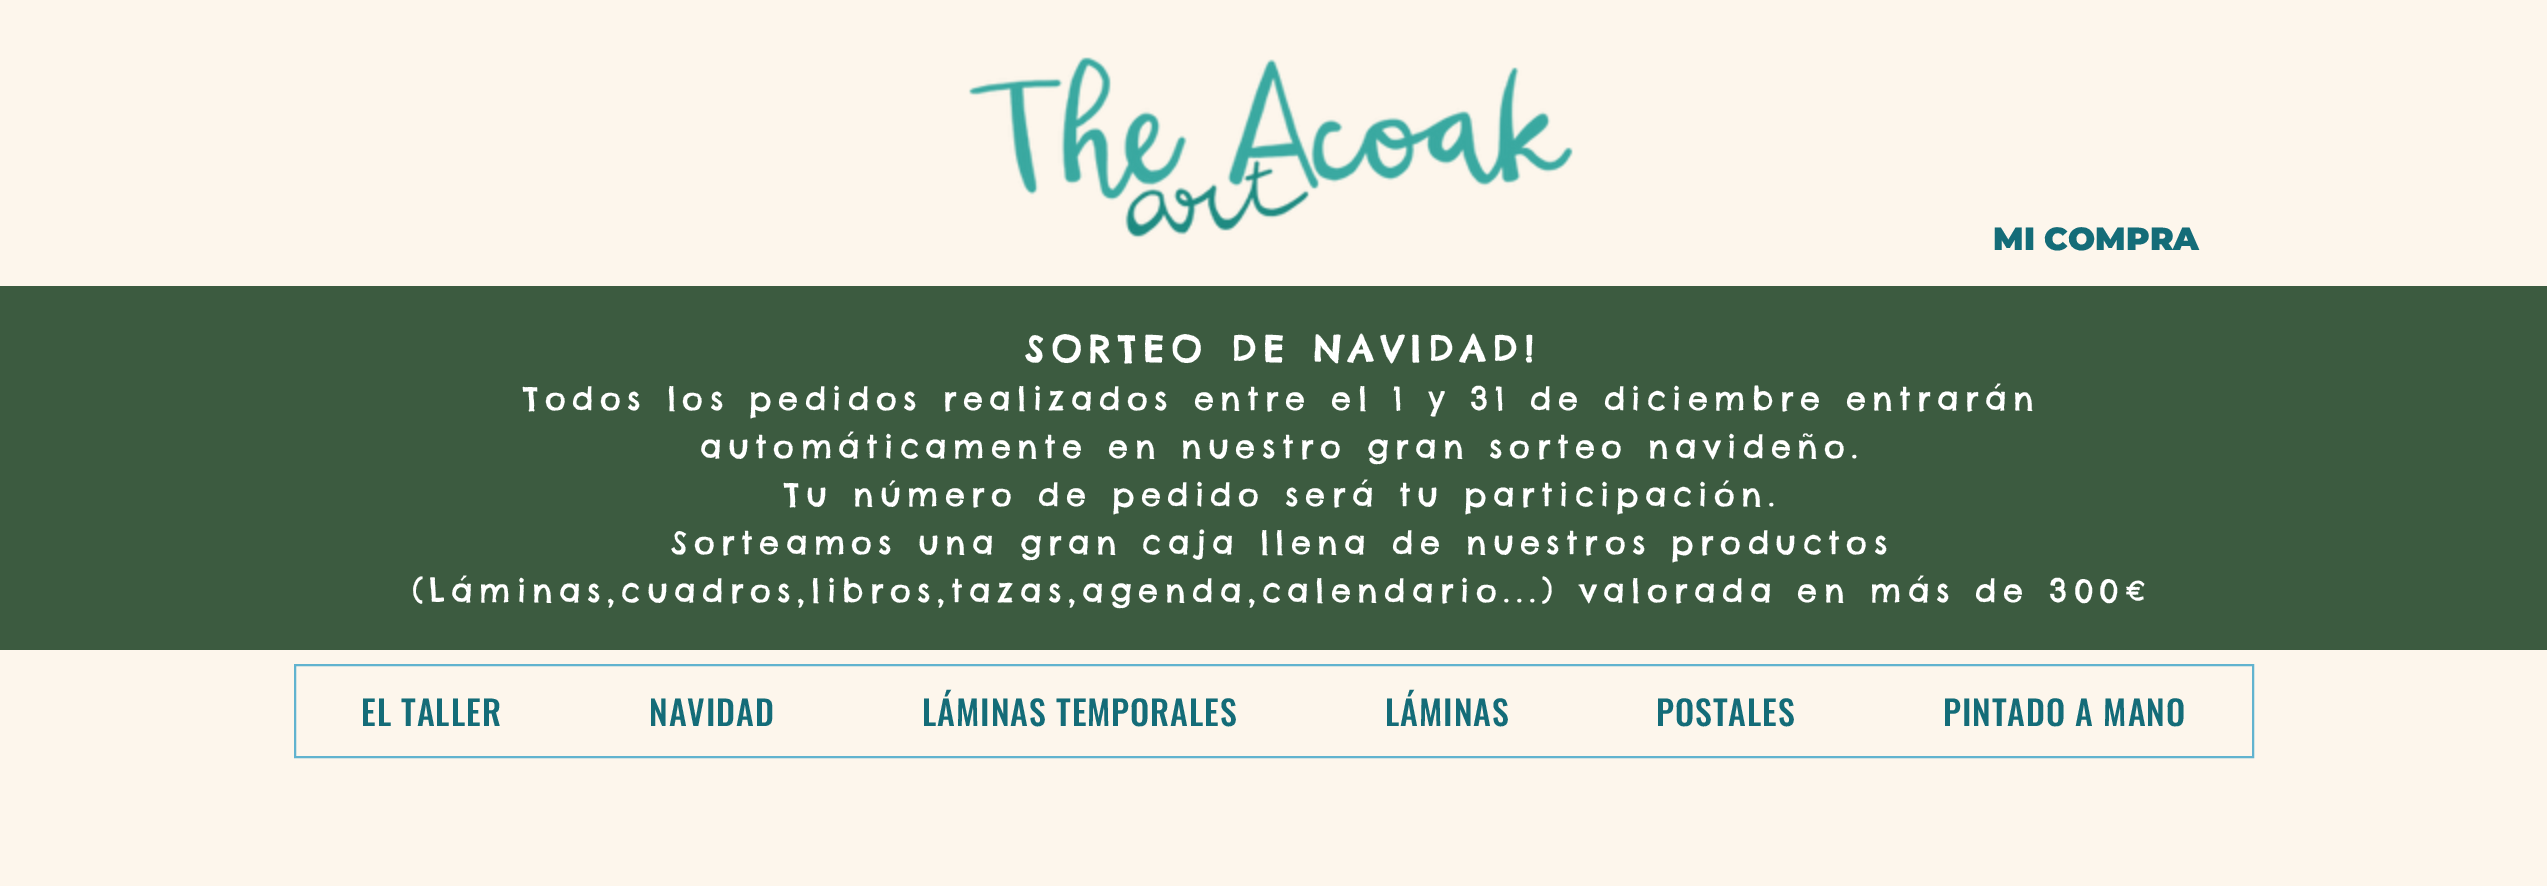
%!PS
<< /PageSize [2547 886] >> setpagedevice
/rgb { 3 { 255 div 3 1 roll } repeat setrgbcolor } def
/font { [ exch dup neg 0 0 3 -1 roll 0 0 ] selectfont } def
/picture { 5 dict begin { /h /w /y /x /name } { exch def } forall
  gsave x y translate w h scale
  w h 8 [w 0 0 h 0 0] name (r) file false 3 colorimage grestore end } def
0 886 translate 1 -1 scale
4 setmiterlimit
253 246 236 rgb
0 0 2547 886 rectfill
(img/1.rgb) 968 57 605 182 picture
60 91 64 rgb
0 286 2547 364 rectfill
97 179 207 rgb
2 setlinewidth
295 665 1958 92 rectstroke
/Montserrat-Thin 32 font
20 108 120 rgb
1993 250 moveto (MI COMPRA) show
/ChelseaMarket-Bold 36 font
255 255 255 rgb
1025 362 moveto 7.25 0 (SORTEO DE NAVIDAD!) ashow
/ChelseaMarket-Regular 32 font
523 410 moveto 6.4 0 (Todos los pedidos realizados entre el 1 y 31 de diciembre entrarán) ashow
700 458 moveto 6.4 0 (automáticamente en nuestro gran sorteo navideño.) ashow
784 506 moveto 6.4 0 (Tu número de pedido será tu participación.) ashow
671 554 moveto 6.4 0 (Sorteamos una gran caja llena de nuestros productos) ashow
412 602 moveto 6.4 0 (\(Láminas,cuadros,libros,tazas,agenda,calendario...\) valorada en más de 300€) ashow
/Oswald-Medium 34 font
20 108 120 rgb
361 726 moveto 1 0 (EL TALLER) ashow
649 726 moveto 1 0 (NAVIDAD) ashow
922 726 moveto 1 0 (LÁMINAS TEMPORALES) ashow
1385 726 moveto 1 0 (LÁMINAS) ashow
1656 726 moveto 1 0 (POSTALES) ashow
1943 726 moveto 1 0 (PINTADO A MANO) ashow
showpage
